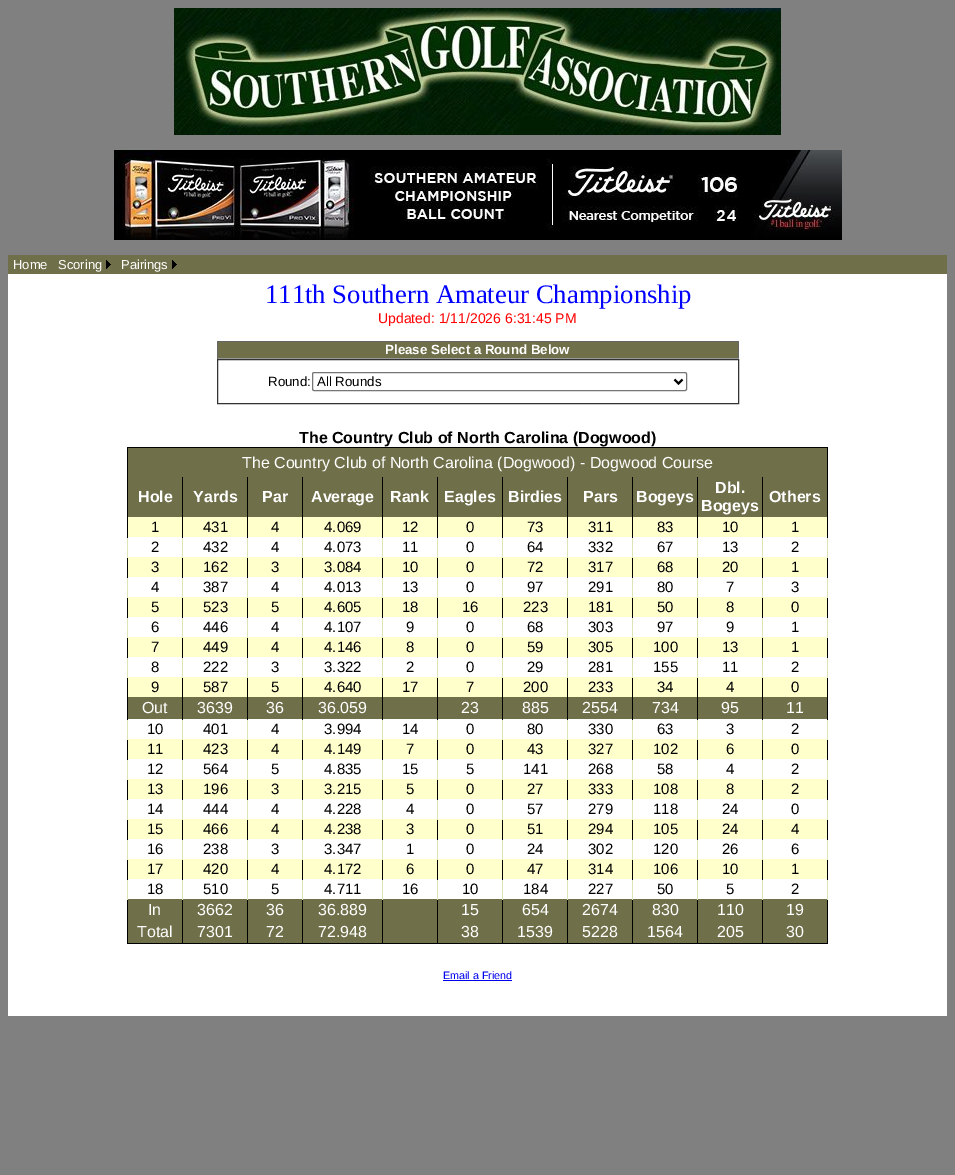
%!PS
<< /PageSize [955 1175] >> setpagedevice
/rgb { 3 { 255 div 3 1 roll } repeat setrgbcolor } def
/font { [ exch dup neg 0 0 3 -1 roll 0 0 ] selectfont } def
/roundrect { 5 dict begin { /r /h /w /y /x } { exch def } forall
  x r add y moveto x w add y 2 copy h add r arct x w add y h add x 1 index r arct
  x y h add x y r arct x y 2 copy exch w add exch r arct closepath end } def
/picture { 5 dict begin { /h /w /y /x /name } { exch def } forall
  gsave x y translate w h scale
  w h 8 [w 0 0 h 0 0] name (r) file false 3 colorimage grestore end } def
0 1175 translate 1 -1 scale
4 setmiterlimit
128 128 128 rgb
0 0 955 1175 rectfill
(img/1.rgb) 174 8 607 127 picture
(img/2.rgb) 114 150 728 90 picture
111 111 74 rgb
8 255 939 19 rectfill
(img/3.rgb) 106 260 5 9 picture
(img/3.rgb) 172 260 5 9 picture
[
  [8 274 939 742 255 255 255]
  [218 342 520 16 111 111 74]
  [217 341 522 1 102 102 102]
  [738 341 1 18 102 102 102]
  [217 358 522 1 153 153 153]
  [217 341 1 18 102 102 102]
] { aload pop rgb rectfill } forall
51 51 51 rgb
217.5 359.5 521 44 rectstroke
118 118 118 rgb
312.5 372.5 374 18 1.5 roundrect stroke
0 0 0 rgb
2 setlinewidth
674.5 379.5 moveto 678.5 383.5 lineto 682.5 379.5 lineto stroke
[
  [127 447 701 1 0 0 0]
  [827 447 1 497 0 0 0]
  [127 943 701 1 0 0 0]
  [127 447 1 497 0 0 0]
  [128 448 699 69 111 111 74]
  [128 517 699 20 255 255 204]
  [127 537 1 21 218 228 180]
  [127 537 1 1 0 0 0]
  [128 557 699 20 255 255 204]
  [128 597 699 20 255 255 204]
  [128 637 699 20 255 255 204]
  [128 677 699 20 255 255 204]
  [128 697 699 22 111 111 74]
  [128 739 699 20 255 255 204]
  [128 779 699 20 255 255 204]
  [128 819 699 20 255 255 204]
  [128 859 699 20 255 255 204]
  [128 899 699 44 111 111 74]
  [182 899 1 45 0 0 0]
  [182 879 1 21 218 228 180]
  [182 859 1 21 0 0 0]
  [182 839 1 21 218 228 180]
  [182 819 1 21 0 0 0]
  [182 799 1 21 218 228 180]
  [182 779 1 21 0 0 0]
  [182 759 1 21 218 228 180]
  [182 739 1 21 0 0 0]
  [182 719 1 21 218 228 180]
  [182 677 1 43 0 0 0]
  [182 657 1 21 218 228 180]
  [182 637 1 21 0 0 0]
  [182 617 1 21 218 228 180]
  [182 597 1 21 0 0 0]
  [182 577 1 21 218 228 180]
  [182 557 1 21 0 0 0]
  [182 537 1 21 218 228 180]
  [182 477 1 61 0 0 0]
  [247 899 1 45 0 0 0]
  [247 879 1 21 218 228 180]
  [247 859 1 21 0 0 0]
  [247 839 1 21 218 228 180]
  [247 819 1 21 0 0 0]
  [247 799 1 21 218 228 180]
  [247 779 1 21 0 0 0]
  [247 759 1 21 218 228 180]
  [247 739 1 21 0 0 0]
  [247 719 1 21 218 228 180]
  [247 677 1 43 0 0 0]
  [247 657 1 21 218 228 180]
  [247 637 1 21 0 0 0]
  [247 617 1 21 218 228 180]
  [247 597 1 21 0 0 0]
  [247 577 1 21 218 228 180]
  [247 557 1 21 0 0 0]
  [247 537 1 21 218 228 180]
  [247 477 1 61 0 0 0]
  [302 899 1 45 0 0 0]
  [302 879 1 21 218 228 180]
  [302 859 1 21 0 0 0]
  [302 839 1 21 218 228 180]
  [302 819 1 21 0 0 0]
  [302 799 1 21 218 228 180]
  [302 779 1 21 0 0 0]
  [302 759 1 21 218 228 180]
  [302 739 1 21 0 0 0]
  [302 719 1 21 218 228 180]
  [302 677 1 43 0 0 0]
  [302 657 1 21 218 228 180]
  [302 637 1 21 0 0 0]
  [302 617 1 21 218 228 180]
  [302 597 1 21 0 0 0]
  [302 577 1 21 218 228 180]
  [302 557 1 21 0 0 0]
  [302 537 1 21 218 228 180]
  [302 477 1 61 0 0 0]
  [382 899 1 45 0 0 0]
  [382 879 1 21 218 228 180]
  [382 859 1 21 0 0 0]
  [382 839 1 21 218 228 180]
  [382 819 1 21 0 0 0]
  [382 799 1 21 218 228 180]
  [382 779 1 21 0 0 0]
  [382 759 1 21 218 228 180]
  [382 739 1 21 0 0 0]
  [382 719 1 21 218 228 180]
  [382 677 1 43 0 0 0]
  [382 657 1 21 218 228 180]
  [382 637 1 21 0 0 0]
  [382 617 1 21 218 228 180]
  [382 597 1 21 0 0 0]
  [382 577 1 21 218 228 180]
  [382 557 1 21 0 0 0]
  [382 537 1 21 218 228 180]
  [382 477 1 61 0 0 0]
  [437 899 1 45 0 0 0]
  [437 879 1 21 218 228 180]
  [437 859 1 21 0 0 0]
  [437 839 1 21 218 228 180]
  [437 819 1 21 0 0 0]
  [437 799 1 21 218 228 180]
  [437 779 1 21 0 0 0]
  [437 759 1 21 218 228 180]
  [437 739 1 21 0 0 0]
  [437 719 1 21 218 228 180]
  [437 677 1 43 0 0 0]
  [437 657 1 21 218 228 180]
  [437 637 1 21 0 0 0]
  [437 617 1 21 218 228 180]
  [437 597 1 21 0 0 0]
  [437 577 1 21 218 228 180]
  [437 557 1 21 0 0 0]
  [437 537 1 21 218 228 180]
  [437 477 1 61 0 0 0]
  [502 899 1 45 0 0 0]
  [502 879 1 21 218 228 180]
  [502 859 1 21 0 0 0]
  [502 839 1 21 218 228 180]
  [502 819 1 21 0 0 0]
  [502 799 1 21 218 228 180]
  [502 779 1 21 0 0 0]
  [502 759 1 21 218 228 180]
  [502 739 1 21 0 0 0]
  [502 719 1 21 218 228 180]
  [502 677 1 43 0 0 0]
  [502 657 1 21 218 228 180]
  [502 637 1 21 0 0 0]
  [502 617 1 21 218 228 180]
  [502 597 1 21 0 0 0]
  [502 577 1 21 218 228 180]
  [502 557 1 21 0 0 0]
  [502 537 1 21 218 228 180]
  [502 477 1 61 0 0 0]
  [567 899 1 45 0 0 0]
  [567 879 1 21 218 228 180]
  [567 859 1 21 0 0 0]
  [567 839 1 21 218 228 180]
  [567 819 1 21 0 0 0]
  [567 799 1 21 218 228 180]
  [567 779 1 21 0 0 0]
  [567 759 1 21 218 228 180]
  [567 739 1 21 0 0 0]
  [567 719 1 21 218 228 180]
  [567 677 1 43 0 0 0]
  [567 657 1 21 218 228 180]
  [567 637 1 21 0 0 0]
  [567 617 1 21 218 228 180]
  [567 597 1 21 0 0 0]
  [567 577 1 21 218 228 180]
  [567 557 1 21 0 0 0]
  [567 537 1 21 218 228 180]
  [567 477 1 61 0 0 0]
  [632 899 1 45 0 0 0]
  [632 879 1 21 218 228 180]
  [632 859 1 21 0 0 0]
  [632 839 1 21 218 228 180]
  [632 819 1 21 0 0 0]
  [632 799 1 21 218 228 180]
  [632 779 1 21 0 0 0]
  [632 759 1 21 218 228 180]
  [632 739 1 21 0 0 0]
  [632 719 1 21 218 228 180]
  [632 677 1 43 0 0 0]
  [632 657 1 21 218 228 180]
  [632 637 1 21 0 0 0]
  [632 617 1 21 218 228 180]
  [632 597 1 21 0 0 0]
  [632 577 1 21 218 228 180]
  [632 557 1 21 0 0 0]
  [632 537 1 21 218 228 180]
  [632 477 1 61 0 0 0]
  [697 899 1 45 0 0 0]
  [697 879 1 21 218 228 180]
  [697 859 1 21 0 0 0]
  [697 839 1 21 218 228 180]
  [697 819 1 21 0 0 0]
  [697 799 1 21 218 228 180]
  [697 779 1 21 0 0 0]
  [697 759 1 21 218 228 180]
  [697 739 1 21 0 0 0]
  [697 719 1 21 218 228 180]
  [697 677 1 43 0 0 0]
  [697 657 1 21 218 228 180]
  [697 637 1 21 0 0 0]
  [697 617 1 21 218 228 180]
  [697 597 1 21 0 0 0]
  [697 577 1 21 218 228 180]
  [697 557 1 21 0 0 0]
  [697 537 1 21 218 228 180]
  [697 477 1 61 0 0 0]
  [827 537 1 21 218 228 180]
  [827 537 1 1 0 0 0]
  [762 899 1 45 0 0 0]
  [762 879 1 21 218 228 180]
  [762 859 1 21 0 0 0]
  [762 839 1 21 218 228 180]
  [762 819 1 21 0 0 0]
  [762 799 1 21 218 228 180]
  [762 779 1 21 0 0 0]
  [762 759 1 21 218 228 180]
  [762 739 1 21 0 0 0]
  [762 719 1 21 218 228 180]
  [762 677 1 43 0 0 0]
  [762 657 1 21 218 228 180]
  [762 637 1 21 0 0 0]
  [762 617 1 21 218 228 180]
  [762 597 1 21 0 0 0]
  [762 577 1 21 218 228 180]
  [762 557 1 21 0 0 0]
  [762 537 1 21 218 228 180]
  [762 477 1 61 0 0 0]
  [127 577 1 21 218 228 180]
  [127 577 1 1 0 0 0]
  [827 577 1 21 218 228 180]
  [827 577 1 1 0 0 0]
  [127 617 1 21 218 228 180]
  [127 617 1 1 0 0 0]
  [827 617 1 21 218 228 180]
  [827 617 1 1 0 0 0]
  [127 657 1 21 218 228 180]
  [127 657 1 1 0 0 0]
  [827 657 1 21 218 228 180]
  [827 657 1 1 0 0 0]
  [127 719 1 21 218 228 180]
  [127 719 1 1 0 0 0]
  [827 719 1 21 218 228 180]
  [827 719 1 1 0 0 0]
  [127 759 1 21 218 228 180]
  [127 759 1 1 0 0 0]
  [827 759 1 21 218 228 180]
  [827 759 1 1 0 0 0]
  [127 799 1 21 218 228 180]
  [127 799 1 1 0 0 0]
  [827 799 1 21 218 228 180]
  [827 799 1 1 0 0 0]
  [127 839 1 21 218 228 180]
  [127 839 1 1 0 0 0]
  [827 839 1 21 218 228 180]
  [827 839 1 1 0 0 0]
  [127 879 1 21 218 228 180]
  [127 879 1 1 0 0 0]
  [827 879 1 21 218 228 180]
  [827 879 1 1 0 0 0]
  [443 980 69 1 0 0 238]
] { aload pop rgb rectfill } forall
/LiberationSans-Regular 13 font
255 255 255 rgb
[
  [(Home) 13 269]
  [(Scoring) 58 269]
  [(Pairings) 121 269]
] { aload pop moveto show } forall
/LiberationSerif-Regular 26.7 font
0 0 255 rgb
265 303 moveto (111th Southern Amateur Championship) show
/LiberationSans-Regular 14 font
255 0 0 rgb
378 323 moveto (Updated: 1/11/2026 6:31:45 PM) show
/LiberationSans-Bold 13.3 font
255 255 255 rgb
385 354 moveto (Please Select a Round Below) show
/LiberationSans-Regular 13.3 font
0 0 0 rgb
268 386 moveto (Round:) show
317 386 moveto (All Rounds) show
/LiberationSans-Bold 16 font
299 443 moveto (The Country Club of North Carolina \(Dogwood\)) show
/LiberationSans-Regular 16 font
255 255 255 rgb
242 468 moveto (The Country Club of North Carolina \(Dogwood\) - Dogwood Course) show
/LiberationSans-Bold 16 font
[
  [(Hole) 138 502]
  [(Yards) 193 502]
  [(Par) 262 502]
  [(Average) 311 502]
  [(Rank) 390 502]
  [(Eagles) 444 502]
  [(Birdies) 508 502]
  [(Pars) 583 502]
  [(Bogeys) 636 502]
  [(Dbl.) 715 493]
  [(Bogeys) 701 511]
  [(Others) 769 502]
] { aload pop moveto show } forall
/LiberationSans-Regular 15 font
0 0 0 rgb
[
  [(1) 151 532]
  [(431) 203 532]
  [(4) 271 532]
  [(4.069) 324 532]
  [(12) 402 532]
  [(0) 466 532]
  [(73) 527 532]
  [(311) 588 532]
  [(83) 657 532]
  [(10) 722 532]
  [(1) 791 532]
  [(2) 151 552]
  [(432) 203 552]
  [(4) 271 552]
  [(4.073) 324 552]
  [(11) 402 552]
  [(0) 466 552]
  [(64) 527 552]
  [(332) 588 552]
  [(67) 657 552]
  [(13) 722 552]
  [(2) 791 552]
  [(3) 151 572]
  [(162) 203 572]
  [(3) 271 572]
  [(3.084) 324 572]
  [(10) 402 572]
  [(0) 466 572]
  [(72) 527 572]
  [(317) 588 572]
  [(68) 657 572]
  [(20) 722 572]
  [(1) 791 572]
  [(4) 151 592]
  [(387) 203 592]
  [(4) 271 592]
  [(4.013) 324 592]
  [(13) 402 592]
  [(0) 466 592]
  [(97) 527 592]
  [(291) 588 592]
  [(80) 657 592]
  [(7) 726 592]
  [(3) 791 592]
  [(5) 151 612]
  [(523) 203 612]
  [(5) 271 612]
  [(4.605) 324 612]
  [(18) 402 612]
  [(16) 462 612]
  [(223) 523 612]
  [(181) 588 612]
  [(50) 657 612]
  [(8) 726 612]
  [(0) 791 612]
  [(6) 151 632]
  [(446) 203 632]
  [(4) 271 632]
  [(4.107) 324 632]
  [(9) 406 632]
  [(0) 466 632]
  [(68) 527 632]
  [(303) 588 632]
  [(97) 657 632]
  [(9) 726 632]
  [(1) 791 632]
  [(7) 151 652]
  [(449) 203 652]
  [(4) 271 652]
  [(4.146) 324 652]
  [(8) 406 652]
  [(0) 466 652]
  [(59) 527 652]
  [(305) 588 652]
  [(100) 653 652]
  [(13) 722 652]
  [(1) 791 652]
  [(8) 151 672]
  [(222) 203 672]
  [(3) 271 672]
  [(3.322) 324 672]
  [(2) 406 672]
  [(0) 466 672]
  [(29) 527 672]
  [(281) 588 672]
  [(155) 653 672]
  [(11) 722 672]
  [(2) 791 672]
  [(9) 151 692]
  [(587) 203 692]
  [(5) 271 692]
  [(4.640) 324 692]
  [(17) 402 692]
  [(7) 466 692]
  [(200) 523 692]
  [(233) 588 692]
  [(34) 657 692]
  [(4) 726 692]
  [(0) 791 692]
] { aload pop moveto show } forall
/LiberationSans-Regular 16 font
255 255 255 rgb
[
  [(Out) 142 713]
  [(3639) 197 713]
  [(36) 266 713]
  [(36.059) 318 713]
  [(23) 461 713]
  [(885) 522 713]
  [(2554) 582 713]
  [(734) 652 713]
  [(95) 721 713]
  [(11) 786 713]
] { aload pop moveto show } forall
/LiberationSans-Regular 15 font
0 0 0 rgb
[
  [(10) 147 734]
  [(401) 203 734]
  [(4) 271 734]
  [(3.994) 324 734]
  [(14) 402 734]
  [(0) 466 734]
  [(80) 527 734]
  [(330) 588 734]
  [(63) 657 734]
  [(3) 726 734]
  [(2) 791 734]
  [(11) 147 754]
  [(423) 203 754]
  [(4) 271 754]
  [(4.149) 324 754]
  [(7) 406 754]
  [(0) 466 754]
  [(43) 527 754]
  [(327) 588 754]
  [(102) 653 754]
  [(6) 726 754]
  [(0) 791 754]
  [(12) 147 774]
  [(564) 203 774]
  [(5) 271 774]
  [(4.835) 324 774]
  [(15) 402 774]
  [(5) 466 774]
  [(141) 523 774]
  [(268) 588 774]
  [(58) 657 774]
  [(4) 726 774]
  [(2) 791 774]
  [(13) 147 794]
  [(196) 203 794]
  [(3) 271 794]
  [(3.215) 324 794]
  [(5) 406 794]
  [(0) 466 794]
  [(27) 527 794]
  [(333) 588 794]
  [(108) 653 794]
  [(8) 726 794]
  [(2) 791 794]
  [(14) 147 814]
  [(444) 203 814]
  [(4) 271 814]
  [(4.228) 324 814]
  [(4) 406 814]
  [(0) 466 814]
  [(57) 527 814]
  [(279) 588 814]
  [(118) 653 814]
  [(24) 722 814]
  [(0) 791 814]
  [(15) 147 834]
  [(466) 203 834]
  [(4) 271 834]
  [(4.238) 324 834]
  [(3) 406 834]
  [(0) 466 834]
  [(51) 527 834]
  [(294) 588 834]
  [(105) 653 834]
  [(24) 722 834]
  [(4) 791 834]
  [(16) 147 854]
  [(238) 203 854]
  [(3) 271 854]
  [(3.347) 324 854]
  [(1) 406 854]
  [(0) 466 854]
  [(24) 527 854]
  [(302) 588 854]
  [(120) 653 854]
  [(26) 722 854]
  [(6) 791 854]
  [(17) 147 874]
  [(420) 203 874]
  [(4) 271 874]
  [(4.172) 324 874]
  [(6) 406 874]
  [(0) 466 874]
  [(47) 527 874]
  [(314) 588 874]
  [(106) 653 874]
  [(10) 722 874]
  [(1) 791 874]
  [(18) 147 894]
  [(510) 203 894]
  [(5) 271 894]
  [(4.711) 324 894]
  [(16) 402 894]
  [(10) 462 894]
  [(184) 523 894]
  [(227) 588 894]
  [(50) 657 894]
  [(5) 726 894]
  [(2) 791 894]
] { aload pop moveto show } forall
/LiberationSans-Regular 16 font
255 255 255 rgb
[
  [(In) 148 915]
  [(3662) 197 915]
  [(36) 266 915]
  [(36.889) 318 915]
  [(15) 461 915]
  [(654) 522 915]
  [(2674) 582 915]
  [(830) 652 915]
  [(110) 717 915]
  [(19) 786 915]
  [(Total) 137 937]
  [(7301) 197 937]
  [(72) 266 937]
  [(72.948) 318 937]
  [(38) 461 937]
  [(1539) 517 937]
  [(5228) 582 937]
  [(1564) 647 937]
  [(205) 717 937]
  [(30) 786 937]
] { aload pop moveto show } forall
/LiberationSans-Regular 10.75 font
0 0 238 rgb
443 979 moveto (Email a Friend) show
showpage
